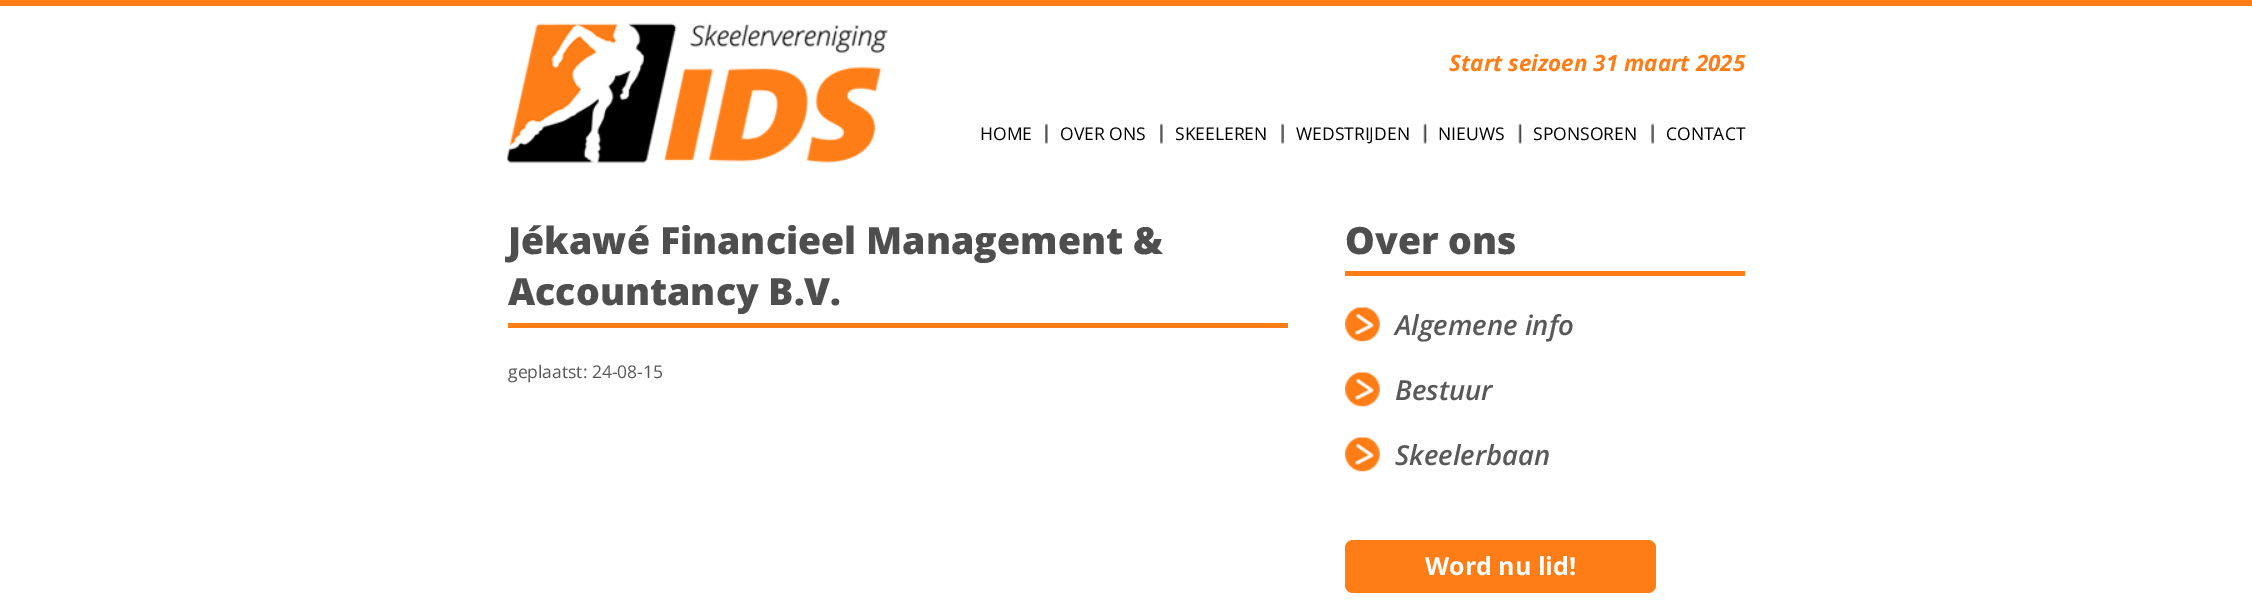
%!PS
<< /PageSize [2252 603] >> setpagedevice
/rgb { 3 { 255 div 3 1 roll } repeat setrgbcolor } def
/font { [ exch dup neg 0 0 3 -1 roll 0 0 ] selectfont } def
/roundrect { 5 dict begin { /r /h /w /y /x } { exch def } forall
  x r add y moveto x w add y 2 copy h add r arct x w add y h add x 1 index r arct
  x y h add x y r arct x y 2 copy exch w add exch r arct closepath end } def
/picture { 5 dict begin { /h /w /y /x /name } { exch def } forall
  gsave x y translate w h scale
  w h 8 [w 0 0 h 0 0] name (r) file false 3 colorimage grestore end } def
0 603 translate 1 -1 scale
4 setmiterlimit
255 255 255 rgb
0 0 2252 603 rectfill
255 125 22 rgb
0 0 2252 6 rectfill
(img/1.rgb) 507 23 381 141 picture
(img/2.rgb) 1045 123 3 21 picture
(img/2.rgb) 1160 123 3 21 picture
(img/3.rgb) 1281 123 3 21 picture
(img/4.rgb) 1423 123 4 21 picture
(img/4.rgb) 1518 123 4 21 picture
(img/3.rgb) 1651 123 3 21 picture
508 323 780 5 rectfill
1345 271 400 5 rectfill
(img/5.rgb) 1345 307 35 35 picture
(img/5.rgb) 1345 372 35 35 picture
(img/5.rgb) 1345 437 35 35 picture
1345 540 311 53 8 roundrect fill
/OpenSans-BoldItalic 22.5 font
1449 71 moveto (Start seizoen 31 maart 2025) show
/OpenSans-Regular 17.5 font
0 0 0 rgb
[
  [(HOME) 980 140]
  [(OVER ONS) 1060 140]
  [(SKEELEREN) 1175 140]
  [(WEDSTRIJDEN) 1296 140]
  [(NIEUWS) 1438 140]
  [(SPONSOREN) 1533 140]
  [(CONTACT) 1666 140]
] { aload pop moveto show } forall
/OpenSans-ExtraBold 37.5 font
78 78 78 rgb
508 254 moveto (Jékawé Financieel Management &) show
508 305 moveto (Accountancy B.V.) show
/OpenSans-Regular 17.5 font
88 88 88 rgb
508 378 moveto (geplaatst: 24-08-15) show
/OpenSans-ExtraBold 37.5 font
78 78 78 rgb
1345 254 moveto (Over ons) show
/OpenSans-SemiBoldItalic 27.5 font
88 88 88 rgb
[
  [(Algemene info) 1395 335]
  [(Bestuur) 1395 400]
  [(Skeelerbaan) 1395 465]
] { aload pop moveto show } forall
/OpenSans-Bold 25 font
255 255 255 rgb
1425 575 moveto (Word nu lid!) show
showpage
